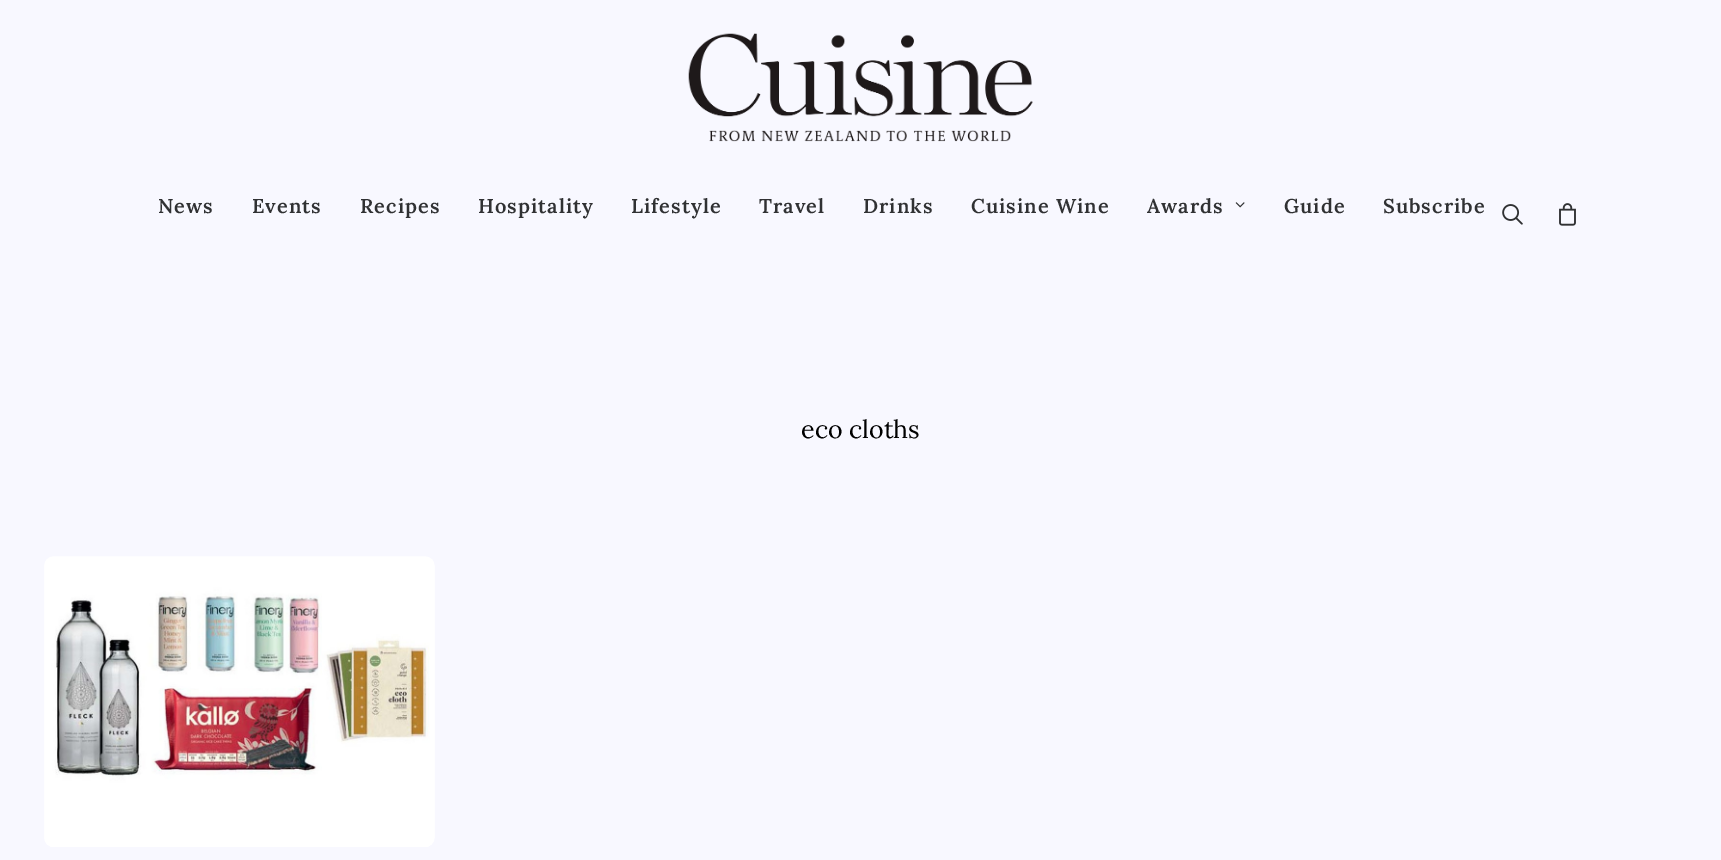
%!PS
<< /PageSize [1721 860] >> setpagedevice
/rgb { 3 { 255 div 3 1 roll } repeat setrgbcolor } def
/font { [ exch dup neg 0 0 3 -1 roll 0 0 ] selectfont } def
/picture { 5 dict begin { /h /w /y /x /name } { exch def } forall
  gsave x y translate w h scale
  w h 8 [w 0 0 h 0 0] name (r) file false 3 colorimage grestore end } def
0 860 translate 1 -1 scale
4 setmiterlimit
248 248 255 rgb
0 0 1721 860 rectfill
(img/1.rgb) 688 33 345 109 picture
(img/2.rgb) 1235 202 10 6 picture
(img/3.rgb) 1502 204 21 21 picture
(img/4.rgb) 1559 203 17 23 picture
(img/5.rgb) 44 556 391 291 picture
/Lora-SemiBold 20 font
48 49 51 rgb
158 213 moveto 1 0 (News) ashow
252 213 moveto 1 0 (Events) ashow
360 213 moveto 1 0 (Recipes) ashow
478 213 moveto 1 0 (Hospitality) ashow
631 213 moveto 1 0 (Lifestyle) ashow
759 213 moveto 1 0 (Travel) ashow
863 213 moveto 1 0 (Drinks) ashow
971 213 moveto 1 0 (Cuisine Wine) ashow
1147 213 moveto 1 0 (Awards) ashow
1284 213 moveto 1 0 (Guide) ashow
1383 213 moveto 1 0 (Subscribe) ashow
/Lora-Regular 25 font
0 0 0 rgb
801 438 moveto (eco cloths) show
showpage
